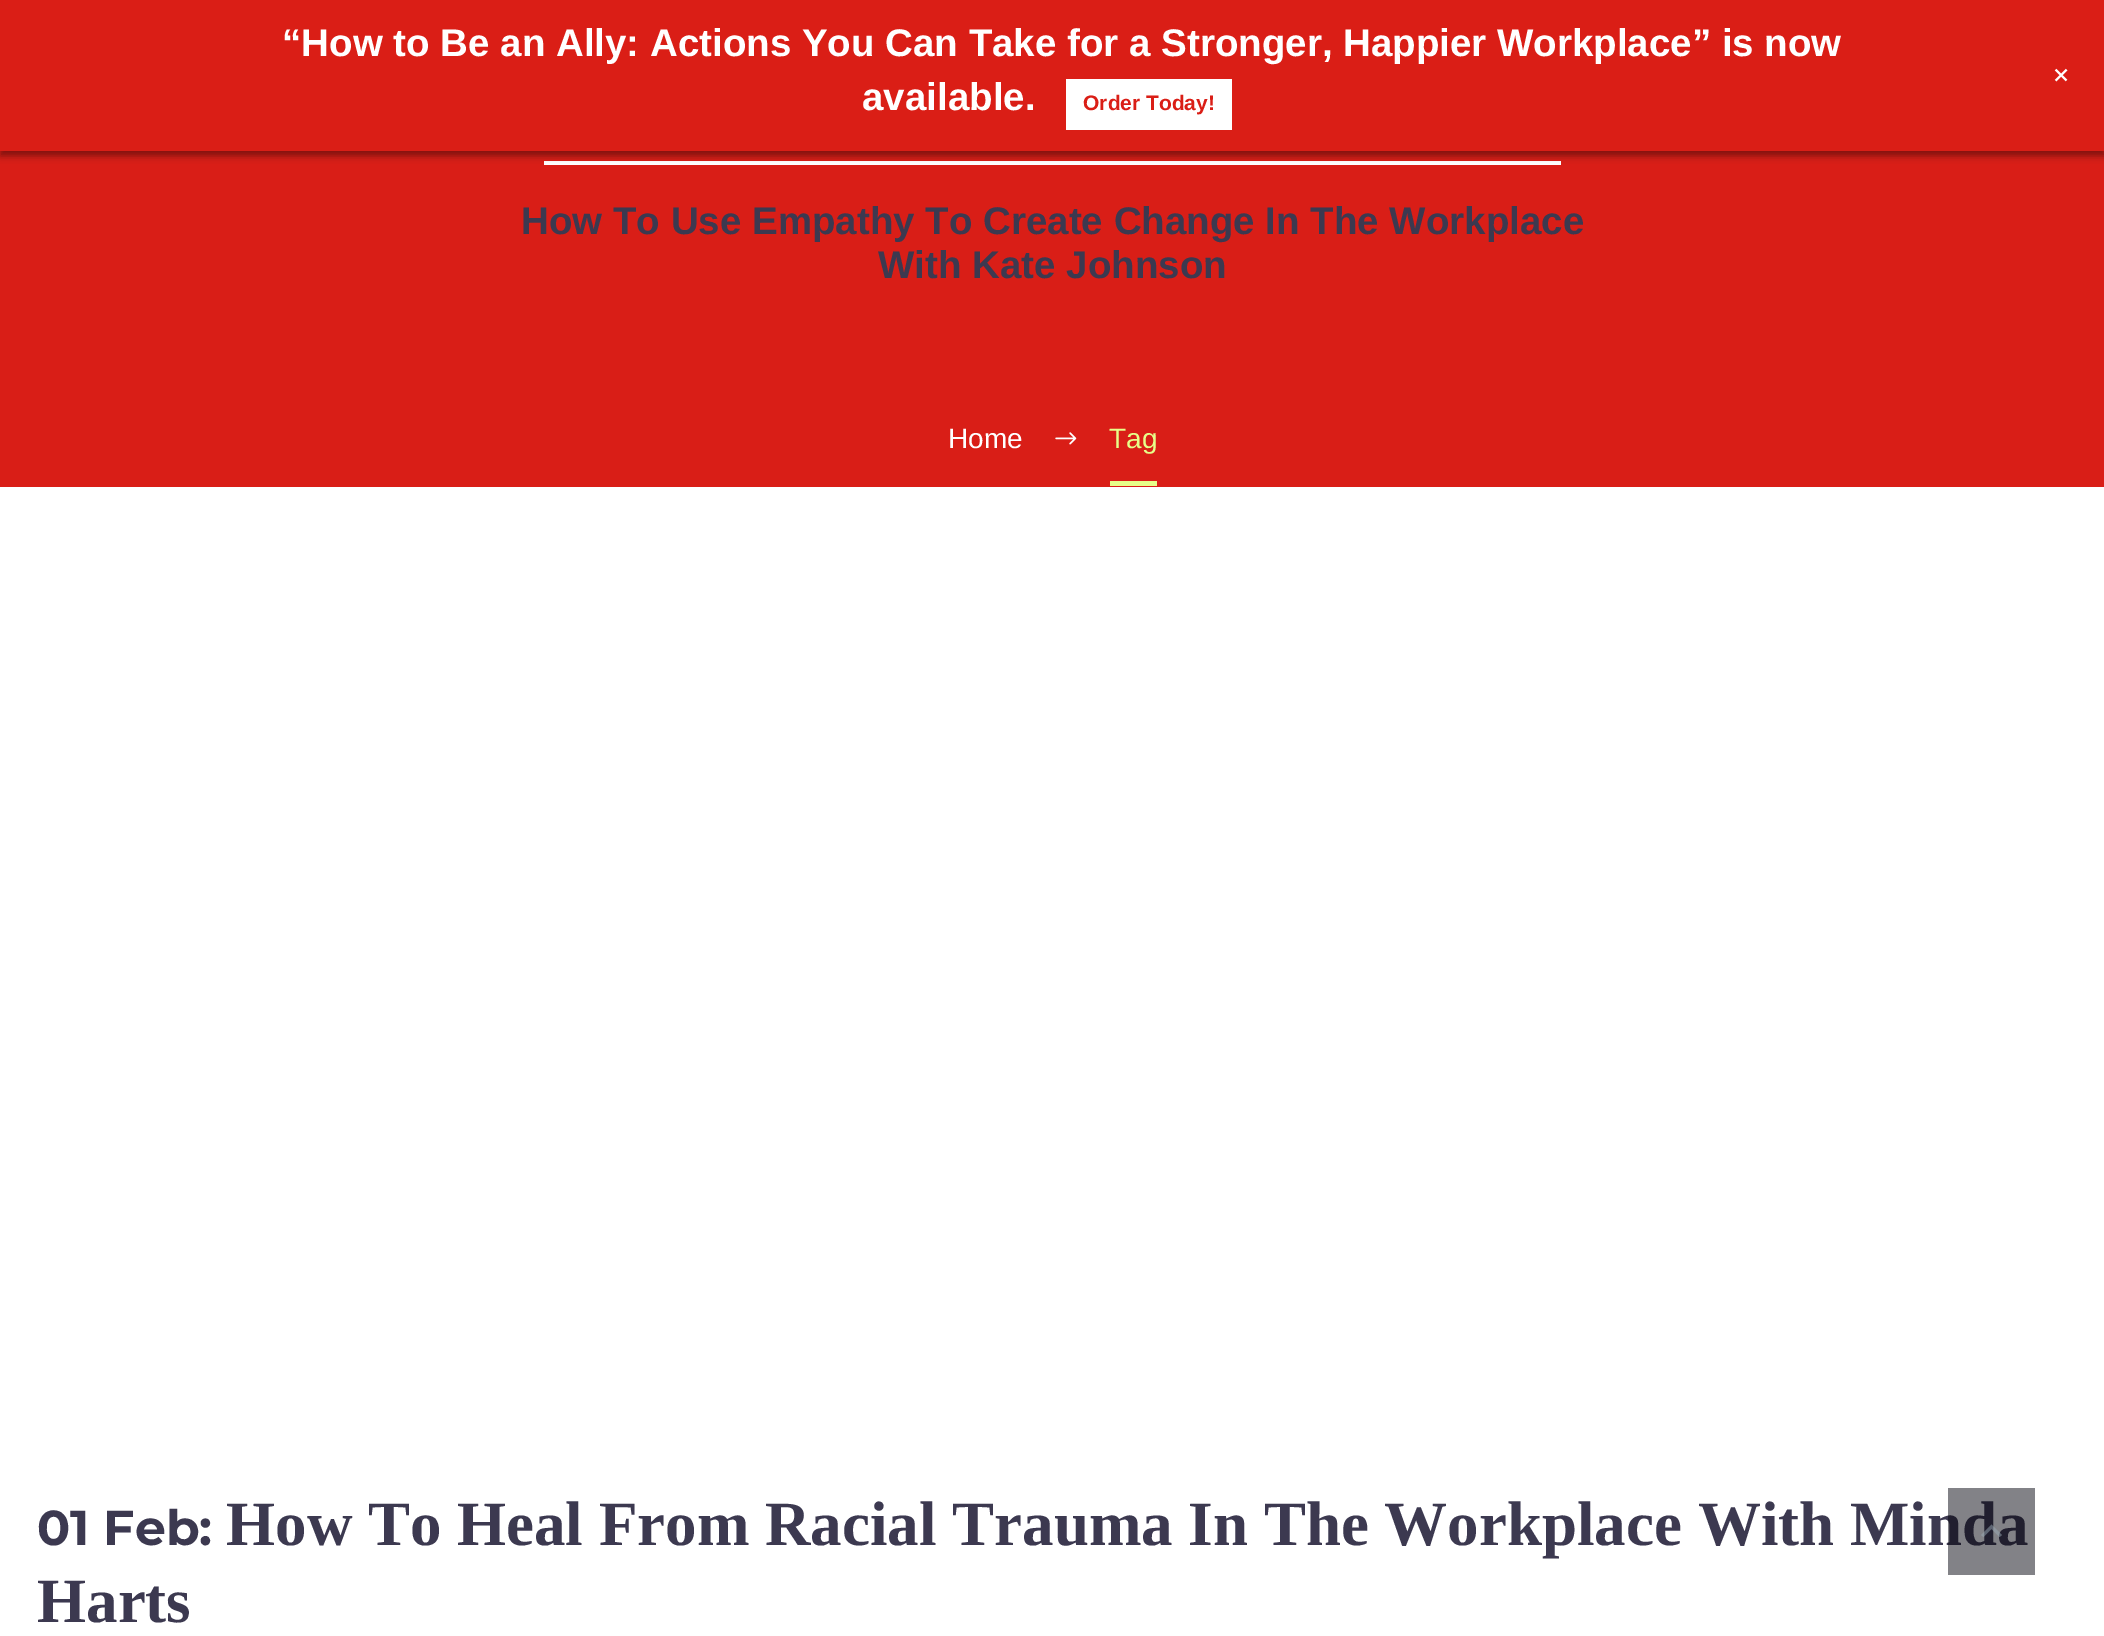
%!PS
<< /PageSize [2104 1636] /PageUsesTransparency true >> setpagedevice
/rgb { 3 { 255 div 3 1 roll } repeat setrgbcolor } def
/font { [ exch dup neg 0 0 3 -1 roll 0 0 ] selectfont } def
/alpha { dup .setfillconstantalpha .setstrokeconstantalpha } def
/roundrect { 5 dict begin { /r /h /w /y /x } { exch def } forall
  x r add y moveto x w add y 2 copy h add r arct x w add y h add x 1 index r arct
  x y h add x y r arct x y 2 copy exch w add exch r arct closepath end } def
/shadow { 12 dict begin { /a /b /q /h /w /y /x } { exch def } forall gsave /was 0 def
  9 -2 -9 { dup b mul 4 div /e exch def 1 sub .425 mul 2.718 exch exp 1 add a .99 .min exch div /now exch def
    1 1 now sub 1 was sub div sub alpha /was now def
    w h .min e 2 mul add 0 gt { x e sub y e sub w e 2 mul add h e 2 mul add
      q e add b .6 mul add w h .min 2 div e add .min 0 .max roundrect fill } if } for grestore end } def
/picture { 5 dict begin { /h /w /y /x /name } { exch def } forall
  gsave x y translate w h scale
  w h 8 [w 0 0 h 0 0] name (r) file false 3 colorimage grestore end } def
0 .pushpdf14devicefilter
0 1636 translate 1 -1 scale
4 setmiterlimit
255 255 255 rgb
0 0 2104 1636 rectfill
217 30 23 rgb
0 151 2104 336 rectfill
255 255 255 rgb
544 161 1017 4 rectfill
0 0 0 rgb
0 5 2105 151 0 3.5 0.4 shadow
218 30 22 rgb
0 0 2104 151 rectfill
255 255 255 rgb
1066 79 166 51 rectfill
(img/1.rgb) 1055 432 22 13 picture
231 255 137 rgb
1110 481 47 5 rectfill
/LiberationSans-Bold 38.5 font
255 255 255 rgb
282 56 moveto (“How to Be an Ally: Actions You Can Take for a Stronger, Happier Workplace” is now) show
862 110 moveto (available.) show
/LiberationSans-Bold 21 font
218 30 22 rgb
1083 110 moveto (Order Today!) show
/LiberationSans-Regular 32 font
255 255 255 rgb
gsave 2047 76 translate 45 rotate 0 0 moveto (+) show grestore
/LiberationSans-Bold 38.5 font
60 57 80 rgb
521 234 moveto (How To Use Empathy To Create Change In The Workplace) show
878 278 moveto (With Kate Johnson) show
/LiberationSans-Regular 28 font
255 255 255 rgb
948 448 moveto (Home) show
231 255 137 rgb
1109 448 moveto (Tag) show
/Montserrat-Bold 49 font
60 57 80 rgb
37 1545 moveto (01 Feb:) show
/LiberationSerif-Bold 63 font
226 1545 moveto (How To Heal From Racial Trauma In The Workplace With Minda) show
37 1622 moveto (Harts) show
0.5 alpha
6 6 15 rgb
1948 1488 87 87 rectfill
153 169 181 rgb
1983.5 1537 moveto 1991.5 1529 lineto 1999.5 1537 lineto 2002 1535 lineto 1991.5 1524.5 lineto 1981 1535 lineto closepath fill
.poppdf14devicefilter showpage
